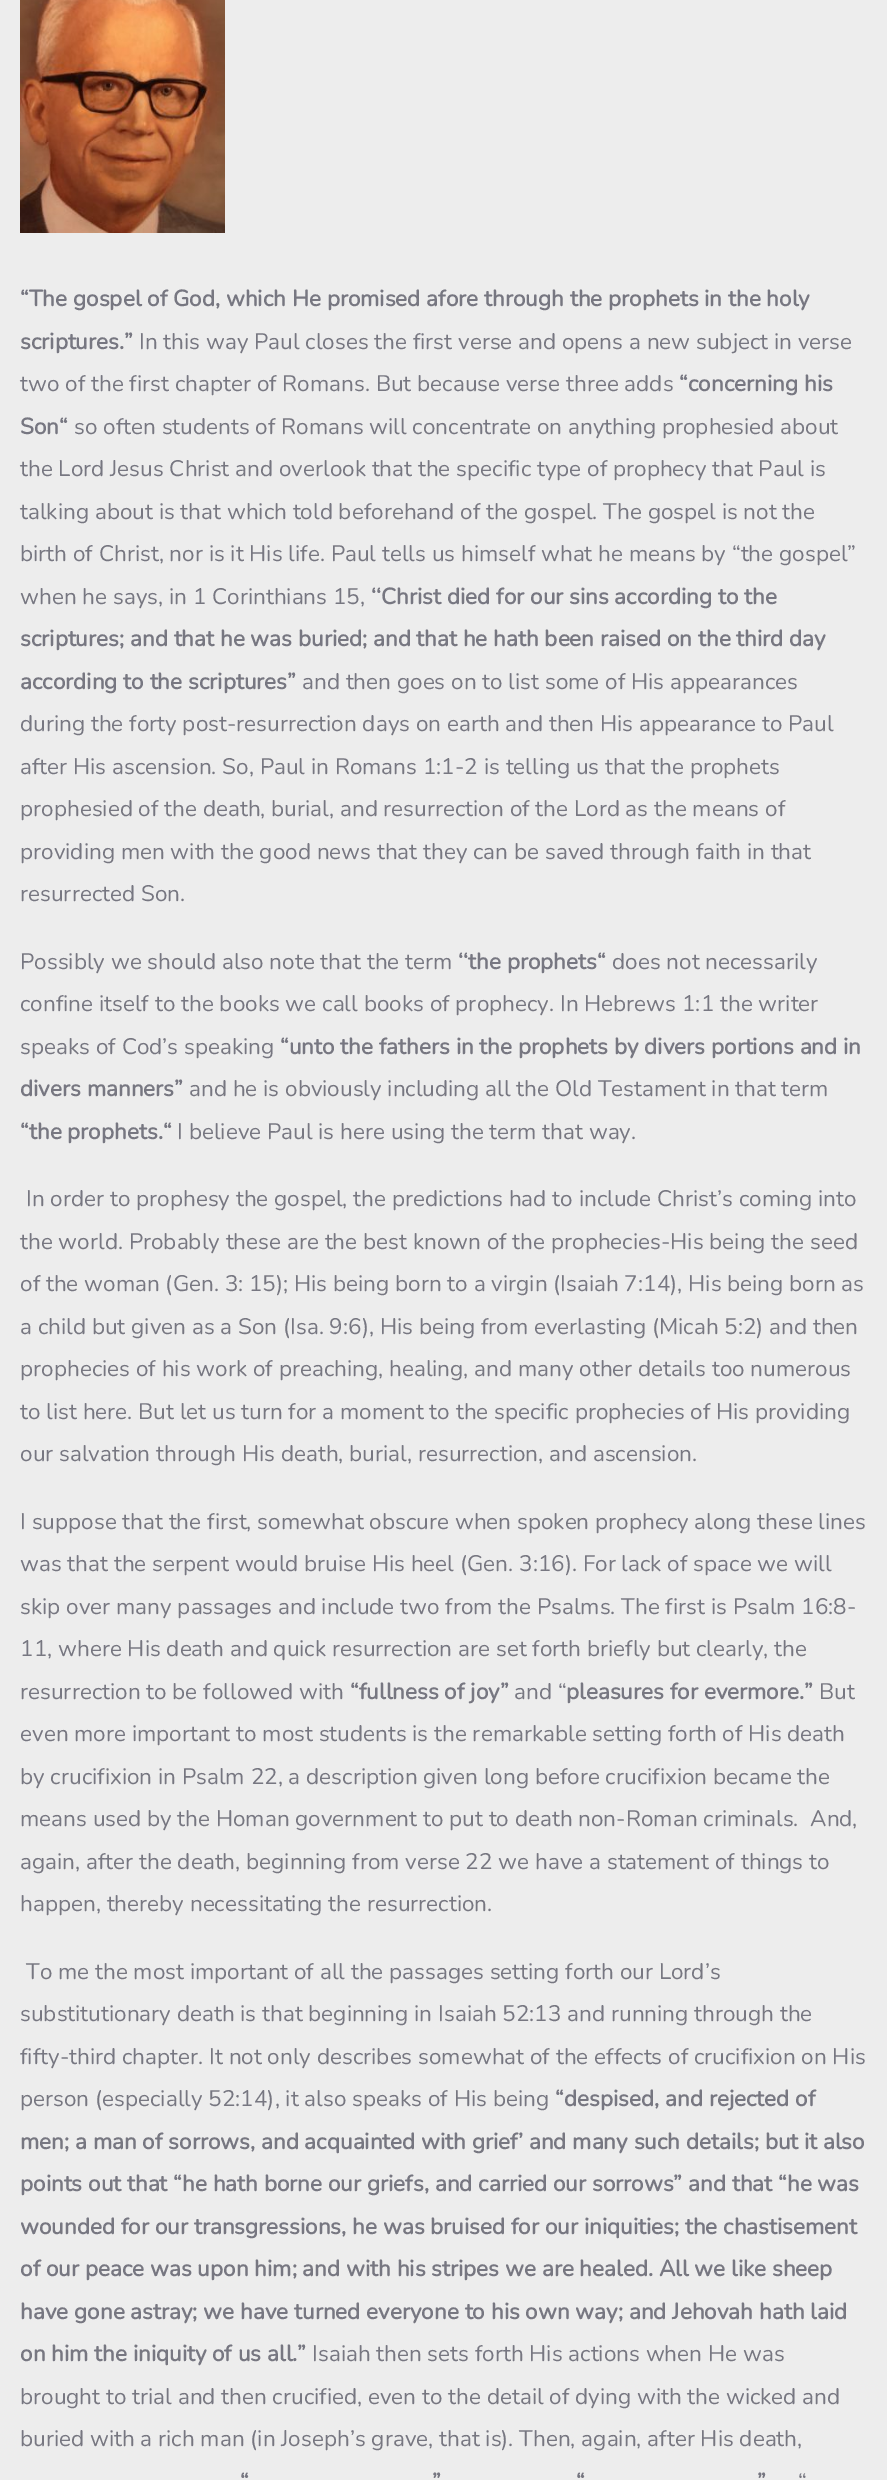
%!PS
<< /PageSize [887 2480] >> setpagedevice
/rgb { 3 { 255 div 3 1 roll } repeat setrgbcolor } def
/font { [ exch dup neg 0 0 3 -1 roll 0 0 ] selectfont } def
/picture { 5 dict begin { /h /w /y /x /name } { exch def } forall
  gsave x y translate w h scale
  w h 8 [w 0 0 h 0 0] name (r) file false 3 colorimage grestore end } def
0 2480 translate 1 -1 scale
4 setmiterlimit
237 237 237 rgb
0 0 887 2480 rectfill
(img/1.rgb) 20 0 205 233 picture
/Nunito-Bold 22.5 font
119 119 129 rgb
20 306 moveto (“The gospel of God, which He promised afore through the prophets in the holy) show
20 349 moveto (scriptures.”) show
/Nunito-ExtraLight 22.5 font
139 349 moveto (In this way Paul closes the first verse and opens a new subject in verse) show
20 391 moveto (two of the first chapter of Romans. But because verse three adds) show
/Nunito-Bold 22.5 font
679 391 moveto (“concerning his) show
20 434 moveto (Son“) show
/Nunito-ExtraLight 22.5 font
[
  [(so often students of Romans will concentrate on anything prophesied about) 74 434]
  [(the Lord Jesus Christ and overlook that the specific type of prophecy that Paul is) 20 476]
  [(talking about is that which told beforehand of the gospel. The gospel is not the) 20 519]
  [(birth of Christ, nor is it His life. Paul tells us himself what he means by “the gospel”) 20 561]
  [(when he says, in 1 Corinthians 15,) 20 604]
] { aload pop moveto show } forall
/Nunito-Bold 22.5 font
[
  [(‘‘Christ died for our sins according to the) 371 604]
  [(scriptures; and that he was buried; and that he hath been raised on the third day) 20 646]
  [(according to the scriptures”) 20 689]
] { aload pop moveto show } forall
/Nunito-ExtraLight 22.5 font
[
  [(and then goes on to list some of His appearances) 302 689]
  [(during the forty post-resurrection days on earth and then His appearance to Paul) 20 731]
  [(after His ascension. So, Paul in Romans 1:1-2 is telling us that the prophets) 20 774]
  [(prophesied of the death, burial, and resurrection of the Lord as the means of) 20 816]
  [(providing men with the good news that they can be saved through faith in that) 20 859]
  [(resurrected Son.) 20 901]
  [(Possibly we should also note that the term) 20 969]
] { aload pop moveto show } forall
/Nunito-Bold 22.5 font
458 969 moveto (‘‘the prophets“) show
/Nunito-ExtraLight 22.5 font
[
  [(does not necessarily) 612 969]
  [(confine itself to the books we call books of prophecy. In Hebrews 1:1 the writer) 20 1011]
  [(speaks of Cod’s speaking) 20 1054]
] { aload pop moveto show } forall
/Nunito-Bold 22.5 font
280 1054 moveto (“unto the fathers in the prophets by divers portions and in) show
20 1096 moveto (divers manners”) show
/Nunito-ExtraLight 22.5 font
189 1096 moveto (and he is obviously including all the Old Testament in that term) show
/Nunito-Bold 22.5 font
20 1139 moveto (“the prophets.“) show
/Nunito-ExtraLight 22.5 font
[
  [(I believe Paul is here using the term that way.) 177 1139]
  [(In order to prophesy the gospel, the predictions had to include Christ’s coming into) 26 1206]
  [(the world. Probably these are the best known of the prophecies-His being the seed) 20 1249]
  [(of the woman \(Gen. 3: 15\); His being born to a virgin \(Isaiah 7:14\), His being born as) 20 1291]
  [(a child but given as a Son \(Isa. 9:6\), His being from everlasting \(Micah 5:2\) and then) 20 1334]
  [(prophecies of his work of preaching, healing, and many other details too numerous) 20 1376]
  [(to list here. But let us turn for a moment to the specific prophecies of His providing) 20 1419]
  [(our salvation through His death, burial, resurrection, and ascension.) 20 1461]
  [(I suppose that the first, somewhat obscure when spoken prophecy along these lines) 20 1529]
  [(was that the serpent would bruise His heel \(Gen. 3:16\). For lack of space we will) 20 1571]
  [(skip over many passages and include two from the Psalms. The first is Psalm 16:8-) 20 1614]
  [(11, where His death and quick resurrection are set forth briefly but clearly, the) 20 1656]
  [(resurrection to be followed with) 20 1699]
] { aload pop moveto show } forall
/Nunito-Bold 22.5 font
350 1699 moveto (“fullness of joy”) show
/Nunito-ExtraLight 22.5 font
514 1699 moveto (and “) show
/Nunito-Bold 22.5 font
566 1699 moveto (pleasures for evermore.”) show
/Nunito-ExtraLight 22.5 font
[
  [(But) 819 1699]
  [(even more important to most students is the remarkable setting forth of His death) 20 1741]
  [(by crucifixion in Psalm 22, a description given long before crucifixion became the) 20 1784]
  [(means used by the Homan government to put to death non-Roman criminals.  And,) 20 1826]
  [(again, after the death, beginning from verse 22 we have a statement of things to) 20 1869]
  [(happen, thereby necessitating the resurrection.) 20 1911]
  [(To me the most important of all the passages setting forth our Lord’s) 26 1979]
  [(substitutionary death is that beginning in Isaiah 52:13 and running through the) 20 2021]
  [(fifty-third chapter. It not only describes somewhat of the effects of crucifixion on His) 20 2064]
  [(person \(especially 52:14\), it also speaks of His being) 20 2106]
] { aload pop moveto show } forall
/Nunito-Bold 22.5 font
[
  [(“despised, and rejected of) 555 2106]
  [(men; a man of sorrows, and acquainted with grief’ and many such details; but it also) 20 2149]
  [(points out that “he hath borne our griefs, and carried our sorrows” and that “he was) 20 2191]
  [(wounded for our transgressions, he was bruised for our iniquities; the chastisement) 20 2234]
  [(of our peace was upon him; and with his stripes we are healed. All we like sheep) 20 2276]
  [(have gone astray; we have turned everyone to his own way; and Jehovah hath laid) 20 2319]
  [(on him the iniquity of us all.”) 20 2361]
] { aload pop moveto show } forall
/Nunito-ExtraLight 22.5 font
[
  [(Isaiah then sets forth His actions when He was) 312 2361]
  [(brought to trial and then crucified, even to the detail of dying with the wicked and) 20 2404]
  [(buried with a rich man \(in Joseph’s grave, that is\). Then, again, after His death,) 20 2446]
] { aload pop moveto show } forall
/Nunito-Bold 22.5 font
[
  [(“) 240 2489]
  [(”) 432 2489]
  [(“) 576 2489]
  [(”) 757 2489]
] { aload pop moveto show } forall
/Nunito-ExtraLight 22.5 font
798 2489 moveto (“) show
showpage
